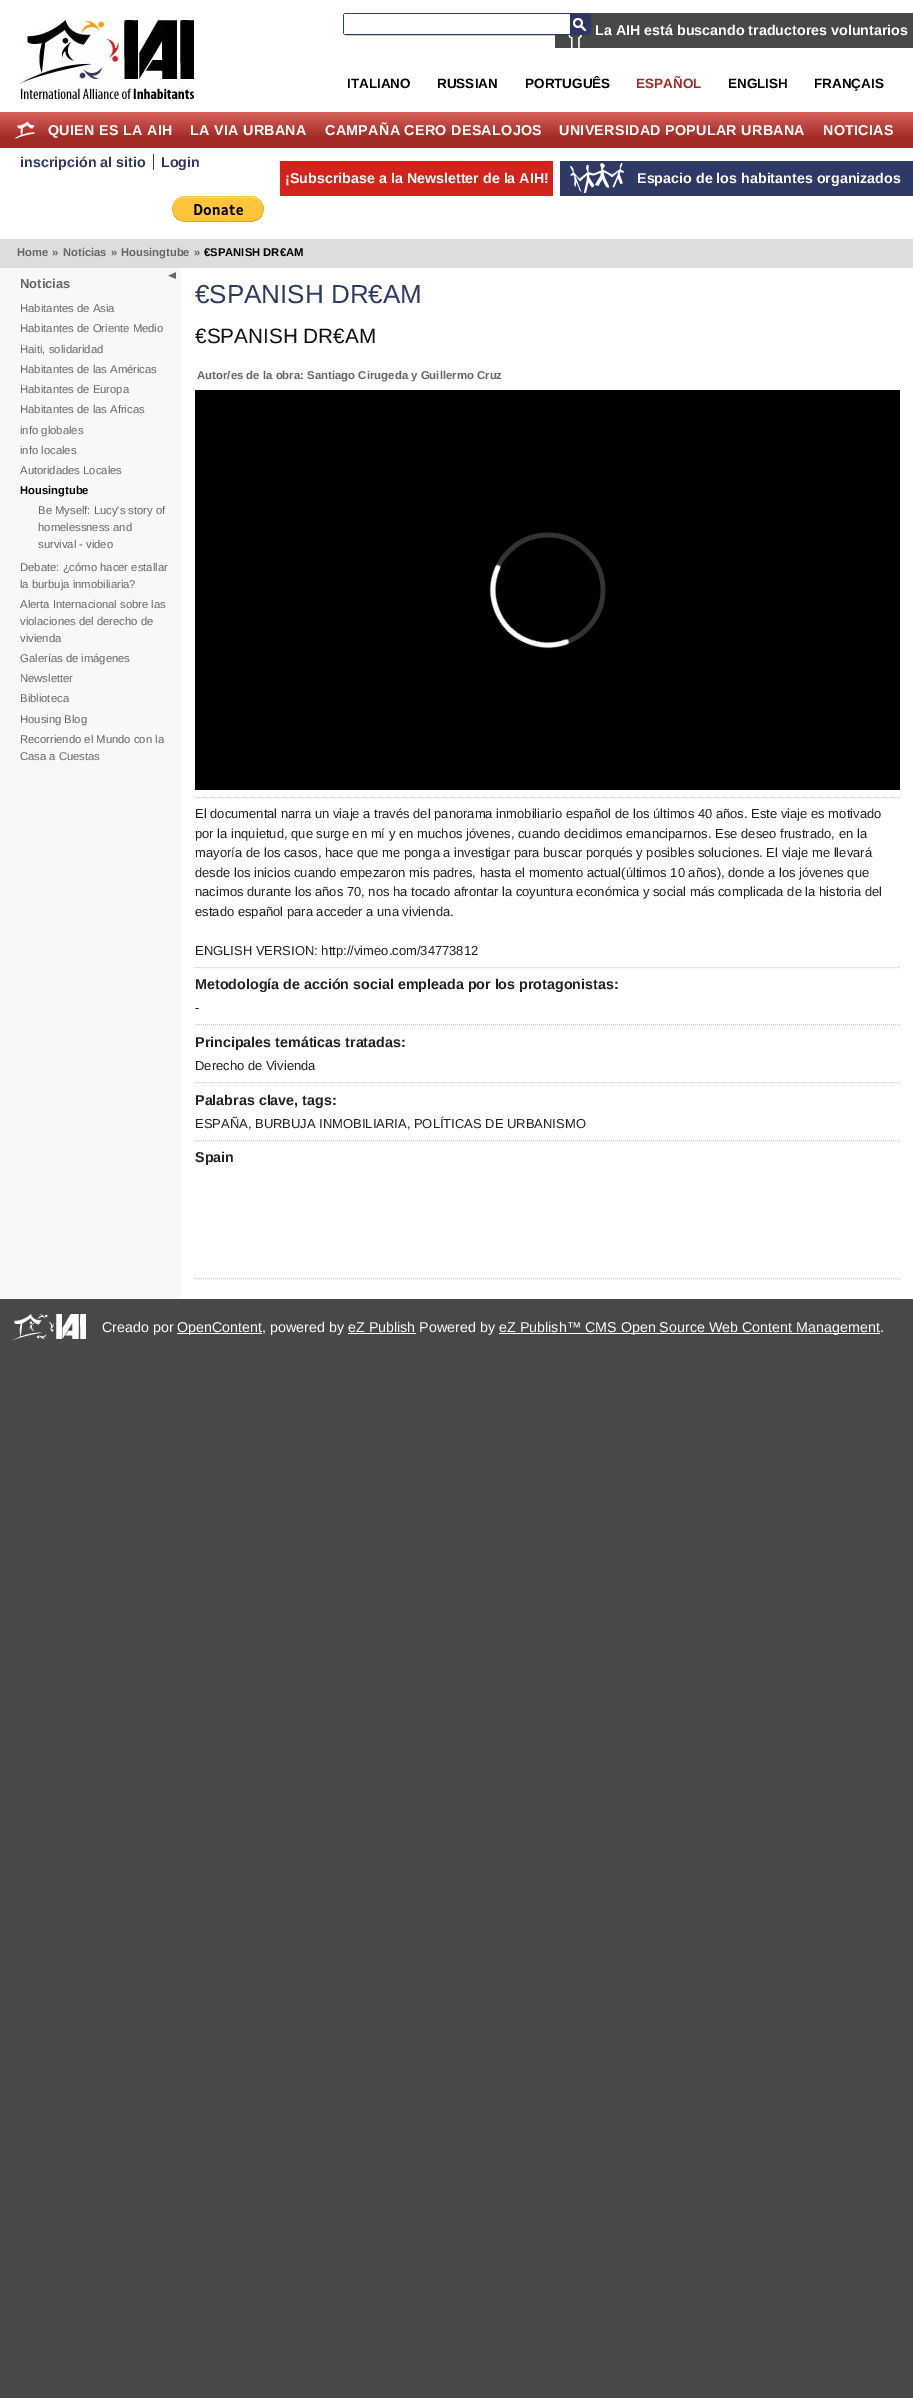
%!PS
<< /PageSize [913 2398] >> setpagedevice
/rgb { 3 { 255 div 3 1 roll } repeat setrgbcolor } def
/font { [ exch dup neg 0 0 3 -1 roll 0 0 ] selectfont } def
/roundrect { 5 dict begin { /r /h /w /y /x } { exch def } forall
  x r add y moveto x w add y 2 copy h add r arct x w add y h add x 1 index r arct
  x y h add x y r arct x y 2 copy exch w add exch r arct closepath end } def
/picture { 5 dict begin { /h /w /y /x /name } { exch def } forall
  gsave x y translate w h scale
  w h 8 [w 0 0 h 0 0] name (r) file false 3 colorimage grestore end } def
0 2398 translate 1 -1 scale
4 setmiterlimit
72 72 72 rgb
0 0 913 2398 rectfill
255 255 255 rgb
0 0 913 112 rectfill
(img/1.rgb) 20 20 174 79 picture
72 72 72 rgb
555 13 358 35 rectfill
46 57 102 rgb
343.5 13.5 247 21 2.5 roundrect stroke
255 255 255 rgb
344 14 226 20 rectfill
(img/2.rgb) 570 14 20 20 picture
(img/3.rgb) 568 35 14 13 picture
212 94 89 rgb
0 112 913 3 rectfill
(img/4.rgb) 0 115 913 33 picture
(img/5.rgb) 15 121 20 18 picture
[
  [0 148 913 91 255 255 255]
  [153 154 1 16 46 57 102]
  [280 161 273 35 212 35 27]
  [560 161 353 35 46 57 102]
] { aload pop rgb rectfill } forall
(img/6.rgb) 570 163 54 30 picture
(img/7.rgb) 172 196 92 26 picture
[
  [0 239 913 29 221 221 221]
  [181 268 732 1031 255 255 255]
  [0 268 181 1031 248 248 248]
] { aload pop rgb rectfill } forall
(img/8.rgb) 168 272 8 7 picture
204 204 204 rgb
[1 1] 0 setdash
195 797.5 moveto 900 797.5 lineto stroke
(img/9.rgb) 195 390 705 400 picture
195 967.5 moveto 900 967.5 lineto stroke
195 1024.5 moveto 900 1024.5 lineto stroke
195 1082.5 moveto 900 1082.5 lineto stroke
195 1140.5 moveto 900 1140.5 lineto stroke
195 1278.5 moveto 900 1278.5 lineto stroke
(img/10.rgb) 12 1314 74 27 picture
[
  [177 1333 85 1 255 255 255]
  [499 1333 381 1 255 255 255]
  [348 1333 68 1 255 255 255]
] { aload pop rgb rectfill } forall
/LiberationSans-Bold 14.3 font
595 35 moveto (La AIH está buscando traductores voluntarios) show
/LiberationSans-Bold 13.5 font
0 0 0 rgb
[
  [(ITALIANO) 347 88]
  [(RUSSIAN) 437 88]
  [(PORTUGUÊS) 525 88]
] { aload pop moveto show } forall
162 42 36 rgb
636 88 moveto (ESPAÑOL) show
0 0 0 rgb
728 88 moveto (ENGLISH) show
814 88 moveto (FRANÇAIS) show
/LiberationSans-Bold 14.3 font
255 255 255 rgb
48 135 moveto 0.3 0 (QUIEN ES LA AIH) ashow
190 135 moveto 0.3 0 (LA VIA URBANA) ashow
325 135 moveto 0.3 0 (CAMPAÑA CERO DESALOJOS) ashow
559 135 moveto 0.3 0 (UNIVERSIDAD POPULAR URBANA) ashow
823 135 moveto 0.3 0 (NOTICIAS) ashow
46 57 102 rgb
20 167 moveto (inscripción al sitio) show
161 167 moveto (Login) show
255 255 255 rgb
285 183 moveto (¡Subscribase a la Newsletter de la AIH!) show
637 183 moveto (Espacio de los habitantes organizados) show
/LiberationSans-Bold 11.25 font
102 102 102 rgb
[
  [(Home) 17 256]
  [(») 52 256]
  [(Noticias) 63 256]
  [(») 111 256]
  [(Housingtube) 121 256]
  [(») 194 256]
] { aload pop moveto show } forall
0 0 0 rgb
204 256 moveto (€SPANISH DR€AM) show
/LiberationSans-Bold 13 font
102 102 102 rgb
20 288 moveto (Noticias) show
/LiberationSans-Regular 11.25 font
[
  [(Habitantes de Asia) 20 312]
  [(Habitantes de Oriente Medio) 20 332]
  [(Haiti, solidaridad) 20 353]
  [(Habitantes de las Américas) 20 373]
  [(Habitantes de Europa) 20 393]
  [(Habitantes de las Africas) 20 413]
  [(info globales) 20 434]
  [(info locales) 20 454]
  [(Autoridades Locales) 20 474]
] { aload pop moveto show } forall
/LiberationSans-Bold 11.25 font
0 0 0 rgb
20 494 moveto (Housingtube) show
/LiberationSans-Regular 11.25 font
102 102 102 rgb
[
  [(Be Myself: Lucy's story of) 38 514]
  [(homelessness and) 38 531]
  [(survival - video) 38 548]
  [(Debate: ¿cómo hacer estallar) 20 571]
  [(la burbuja inmobiliaria?) 20 588]
  [(Alerta Internacional sobre las) 20 608]
  [(violaciones del derecho de) 20 625]
  [(vivienda) 20 642]
  [(Galerías de imágenes) 20 662]
  [(Newsletter) 20 682]
  [(Biblioteca) 20 702]
  [(Housing Blog) 20 723]
  [(Recorriendo el Mundo con la) 20 743]
  [(Casa a Cuestas) 20 760]
] { aload pop moveto show } forall
/LiberationSans-Regular 26 font
46 57 102 rgb
195 303 moveto (€SPANISH DR€AM) show
/LiberationSans-Regular 20.75 font
17 17 17 rgb
195 343 moveto (€SPANISH DR€AM) show
/LiberationSans-Bold 11.4 font
102 102 102 rgb
197 379 moveto (Autor/es de la obra: Santiago Cirugeda y Guillermo Cruz) show
/LiberationSans-Regular 13 font
34 34 34 rgb
[
  [(El documental narra un viaje a través del panorama inmobiliario español de los últimos 40 años. Este viaje es motivado) 195 818]
  [(por la inquietud, que surge en mí y en muchos jóvenes, cuando decidimos emanciparnos. Ese deseo frustrado, en la) 195 838]
  [(mayoría de los casos, hace que me ponga a investigar para buscar porqués y posibles soluciones. El viaje me llevará) 195 857]
  [(desde los inicios cuando empezaron mis padres, hasta el momento actual\(últimos 10 años\), donde a los jóvenes que) 195 877]
  [(nacimos durante los años 70, nos ha tocado afrontar la coyuntura económica y social más complicada de la historia del) 195 896]
  [(estado español para acceder a una vivienda.) 195 916]
  [(ENGLISH VERSION: http://vimeo.com/34773812) 195 955]
] { aload pop moveto show } forall
/LiberationSans-Bold 14.3 font
195 989 moveto (Metodología de acción social empleada por los protagonistas:) show
/LiberationSans-Regular 13 font
195 1012 moveto (-) show
/LiberationSans-Bold 14.3 font
195 1047 moveto (Principales temáticas tratadas:) show
/LiberationSans-Regular 13 font
195 1070 moveto (Derecho de Vivienda) show
/LiberationSans-Bold 14.3 font
195 1105 moveto (Palabras clave, tags:) show
/LiberationSans-Regular 13 font
195 1128 moveto (ESPAÑA, BURBUJA INMOBILIARIA, POLÍTICAS DE URBANISMO) show
/LiberationSans-Bold 14.3 font
195 1162 moveto (Spain) show
/LiberationSans-Regular 14.3 font
255 255 255 rgb
[
  [(Creado por) 102 1332]
  [(OpenContent, powered by eZ Publish Powered by) 177 1332]
  [(eZ Publish™ CMS Open Source Web Content Management.) 499 1332]
] { aload pop moveto show } forall
showpage
